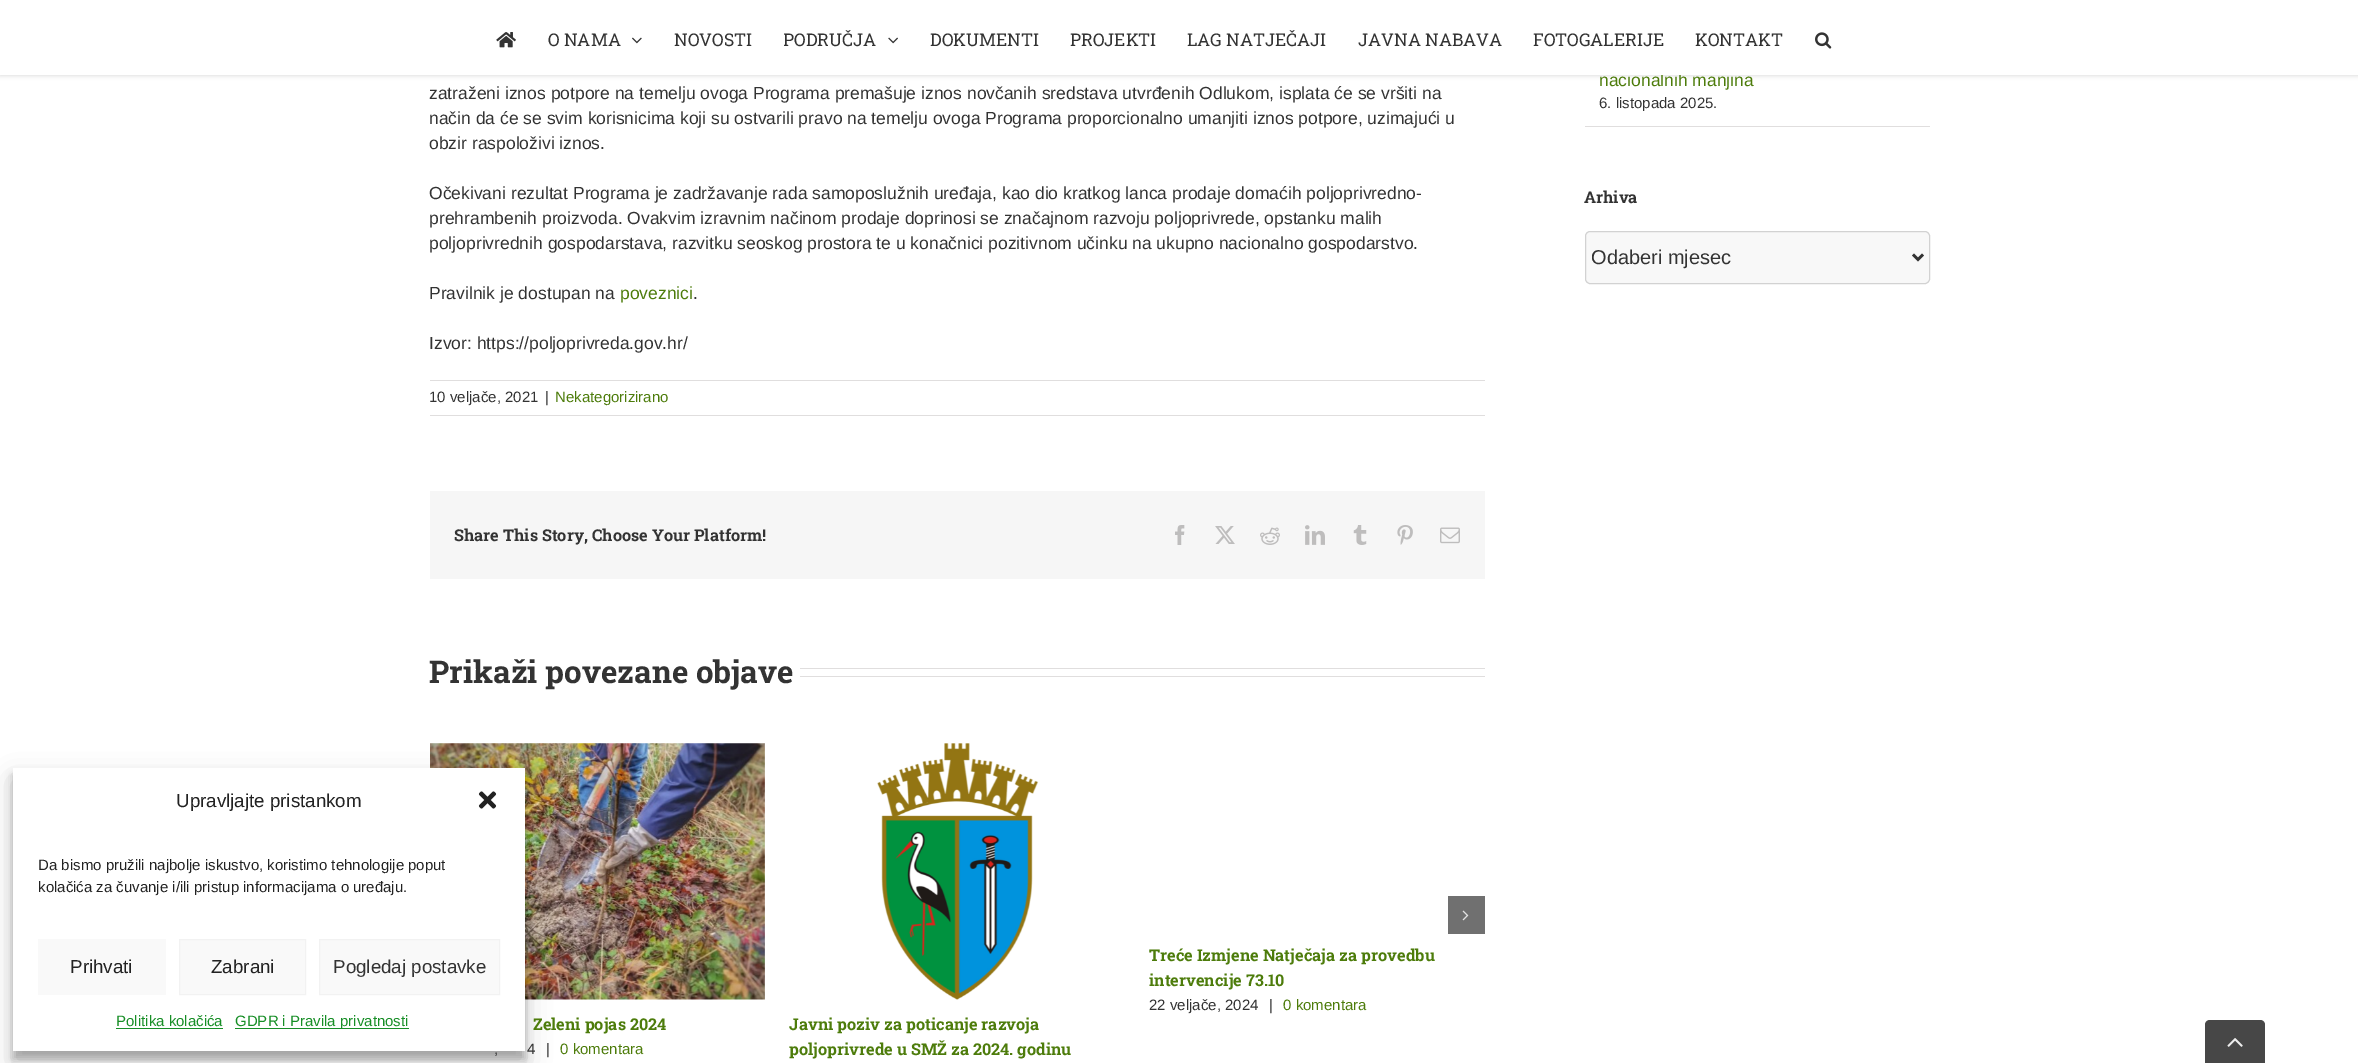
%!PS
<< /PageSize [2358 1063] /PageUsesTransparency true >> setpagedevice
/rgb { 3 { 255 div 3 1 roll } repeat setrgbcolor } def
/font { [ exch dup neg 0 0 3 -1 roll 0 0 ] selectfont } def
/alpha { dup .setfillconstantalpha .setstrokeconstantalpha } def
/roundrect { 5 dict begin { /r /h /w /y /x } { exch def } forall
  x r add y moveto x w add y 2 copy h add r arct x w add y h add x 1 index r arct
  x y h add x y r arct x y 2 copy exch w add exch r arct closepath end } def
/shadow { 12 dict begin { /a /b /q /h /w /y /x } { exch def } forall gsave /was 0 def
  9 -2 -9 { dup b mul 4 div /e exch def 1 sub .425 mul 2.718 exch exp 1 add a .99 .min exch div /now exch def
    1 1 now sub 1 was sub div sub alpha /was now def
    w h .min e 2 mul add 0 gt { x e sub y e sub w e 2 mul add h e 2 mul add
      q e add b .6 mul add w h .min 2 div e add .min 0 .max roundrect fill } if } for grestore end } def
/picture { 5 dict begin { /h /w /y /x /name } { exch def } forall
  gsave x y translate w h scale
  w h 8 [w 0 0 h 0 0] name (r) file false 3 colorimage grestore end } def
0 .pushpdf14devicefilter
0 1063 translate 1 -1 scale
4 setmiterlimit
255 255 255 rgb
0 0 2358 1063 rectfill
(img/14.rgb) 430 743 335 257 picture
0 0 0 rgb
13 775 512 284 0 4 0.23 shadow
13 780 512 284 0 12.5 0.19 shadow
255 255 255 rgb
13 768 512 283 rectfill
(img/1.rgb) 478 791 19 18 picture
249 249 249 rgb
38 939 128 56 rectfill
179.5 939.5 moveto 305.5 939.5 lineto 305.5 994.5 lineto 179.5 994.5 lineto closepath gsave fill grestore
242 242 242 rgb
stroke
249 249 249 rgb
319.5 939.5 moveto 499.5 939.5 lineto 499.5 994.5 lineto 319.5 994.5 lineto closepath gsave fill grestore
242 242 242 rgb
stroke
23 142 38 rgb
116 1028 107 1 rectfill
235 1028 174 1 rectfill
0 0 0 rgb
0 1 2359 75 0 2 0.12 shadow
[
  [430 380 1055 1 224 222 222]
  [430 415 1055 1 224 222 222]
  [430 491 1055 88 246 246 246]
] { aload pop rgb rectfill } forall
(img/6.rgb) 1175 525 10 20 picture
(img/7.rgb) 1215 526 20 18 picture
(img/8.rgb) 1260 527 20 18 picture
(img/9.rgb) 1305 525 20 20 picture
(img/10.rgb) 1353 525 14 20 picture
(img/11.rgb) 1397 525 16 20 picture
(img/12.rgb) 1440 527 20 17 picture
[
  [800 668 685 1 224 222 222]
  [800 676 685 1 224 222 222]
  [1448 896 37 38 112 112 112]
] { aload pop rgb rectfill } forall
(img/13.rgb) 1462 910 7 11 picture
(img/15.rgb) 877 743 162 257 picture
224 222 222 rgb
1585 126 345 1 rectfill
248 248 248 rgb
1585.5 231.5 344 52 4.5 roundrect gsave fill grestore
210 210 210 rgb
stroke
51 51 51 rgb
2.5 setlinewidth
1913 254.5 moveto 1918 259.5 lineto 1923 254.5 lineto stroke
71 71 71 rgb
2210 1020 moveto 2260 1020 lineto 2263 1020 2265 1022 2265 1025 curveto 2265 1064 lineto 2205 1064 lineto 2205 1025 lineto 2205 1022 2207 1020 2210 1020 curveto closepath fill
(img/16.rgb) 2227 1038 16 9 picture
/LiberationSans-Regular 18.75 font
34 34 34 rgb
176 807 moveto (Upravljajte pristankom) show
/LiberationSans-Regular 15 font
38 870 moveto (Da bismo pružili najbolje iskustvo, koristimo tehnologije poput) show
38 892 moveto (kolačića za čuvanje i/ili pristup informacijama o uređaju.) show
/LiberationSans-Regular 18.75 font
70 973 moveto (Prihvati) show
211 973 moveto (Zabrani) show
51 51 51 rgb
333 973 moveto (Pogledaj postavke) show
/LiberationSans-Regular 15 font
23 142 38 rgb
116 1026 moveto (Politika kolačića) show
235 1026 moveto (GDPR i Pravila privatnosti) show
/LiberationSans-Regular 17.5 font
51 51 51 rgb
[
  [(zatraženi iznos potpore na temelju ovoga Programa premašuje iznos novčanih sredstava utvrđenih Odlukom, isplata će se vršiti na) 429 99]
  [(način da će se svim korisnicima koji su ostvarili pravo na temelju ovoga Programa proporcionalno umanjiti iznos potpore, uzimajući u) 429 124]
  [(obzir raspoloživi iznos.) 429 149]
  [(Očekivani rezultat Programa je zadržavanje rada samoposlužnih uređaja, kao dio kratkog lanca prodaje domaćih poljoprivredno-) 429 199]
  [(prehrambenih proizvoda. Ovakvim izravnim načinom prodaje doprinosi se značajnom razvoju poljoprivrede, opstanku malih) 429 224]
  [(poljoprivrednih gospodarstava, razvitku seoskog prostora te u konačnici pozitivnom učinku na ukupno nacionalno gospodarstvo.) 429 249]
  [(Pravilnik je dostupan na) 429 299]
] { aload pop moveto show } forall
77 124 11 rgb
620 299 moveto (poveznici) show
51 51 51 rgb
693 299 moveto (.) show
429 349 moveto (Izvor: https://poljoprivreda.gov.hr/) show
/LiberationSans-Regular 15 font
429 402 moveto (10 veljače, 2021) show
545 402 moveto (|) show
77 124 11 rgb
555 402 moveto (Nekategorizirano) show
/RobotoSlab-Bold 16.25 font
51 51 51 rgb
454 541 moveto (Share This Story, Choose Your Platform!) show
/RobotoSlab-Bold 31.25 font
429 683 moveto (Prikaži povezane objave) show
/RobotoSlab-Bold 16.25 font
77 124 11 rgb
1149 961 moveto (Treće Izmjene Natječaja za provedbu) show
1149 986 moveto (intervencije 73.10) show
/LiberationSans-Regular 15 font
51 51 51 rgb
1149 1010 moveto (22 veljače, 2024) show
1269 1010 moveto (|) show
77 124 11 rgb
1283 1010 moveto (0 komentara) show
/RobotoSlab-Bold 16.25 font
533 1030 moveto (Zeleni pojas 2024) show
/LiberationSans-Regular 15 font
51 51 51 rgb
[
  [(,) 494 1054]
  [(4) 527 1054]
  [(|) 546 1054]
] { aload pop moveto show } forall
77 124 11 rgb
560 1054 moveto (0 komentara) show
/RobotoSlab-Bold 16.25 font
789 1030 moveto (Javni poziv za poticanje razvoja) show
789 1055 moveto (poljoprivrede u SMŽ za 2024. godinu) show
/LiberationSans-Regular 17.5 font
1599 86 moveto (nacionalnih manjina) show
255 255 255 rgb
0 0 2358 75 rectfill
(img/5.rgb) 1815 32 17 17 picture
/RobotoSlab-Regular 17.5 font
51 51 51 rgb
[
  [(KONTAKT) 1695 46]
  [(FOTOGALERIJE) 1533 46]
  [(JAVNA NABAVA) 1358 46]
  [(LAG NATJEČAJI) 1187 46]
  [(PROJEKTI) 1070 46]
  [(DOKUMENTI) 930 46]
] { aload pop moveto show } forall
(img/4.rgb) 888 37 10 7 picture
gsave
784 0 146 75 rectclip
783 46 moveto (PODRUČJA) show
grestore
674 46 moveto (NOVOSTI) show
(img/3.rgb) 632 37 10 7 picture
548 46 moveto (O NAMA) show
(img/2.rgb) 496 32 20 16 picture
/LiberationSans-Regular 15 font
1599 108 moveto (6. listopada 2025.) show
/RobotoSlab-Bold 16.25 font
1584 203 moveto (Arhiva) show
/LiberationSans-Regular 20 font
1591 264 moveto (Odaberi mjesec) show
.poppdf14devicefilter showpage
